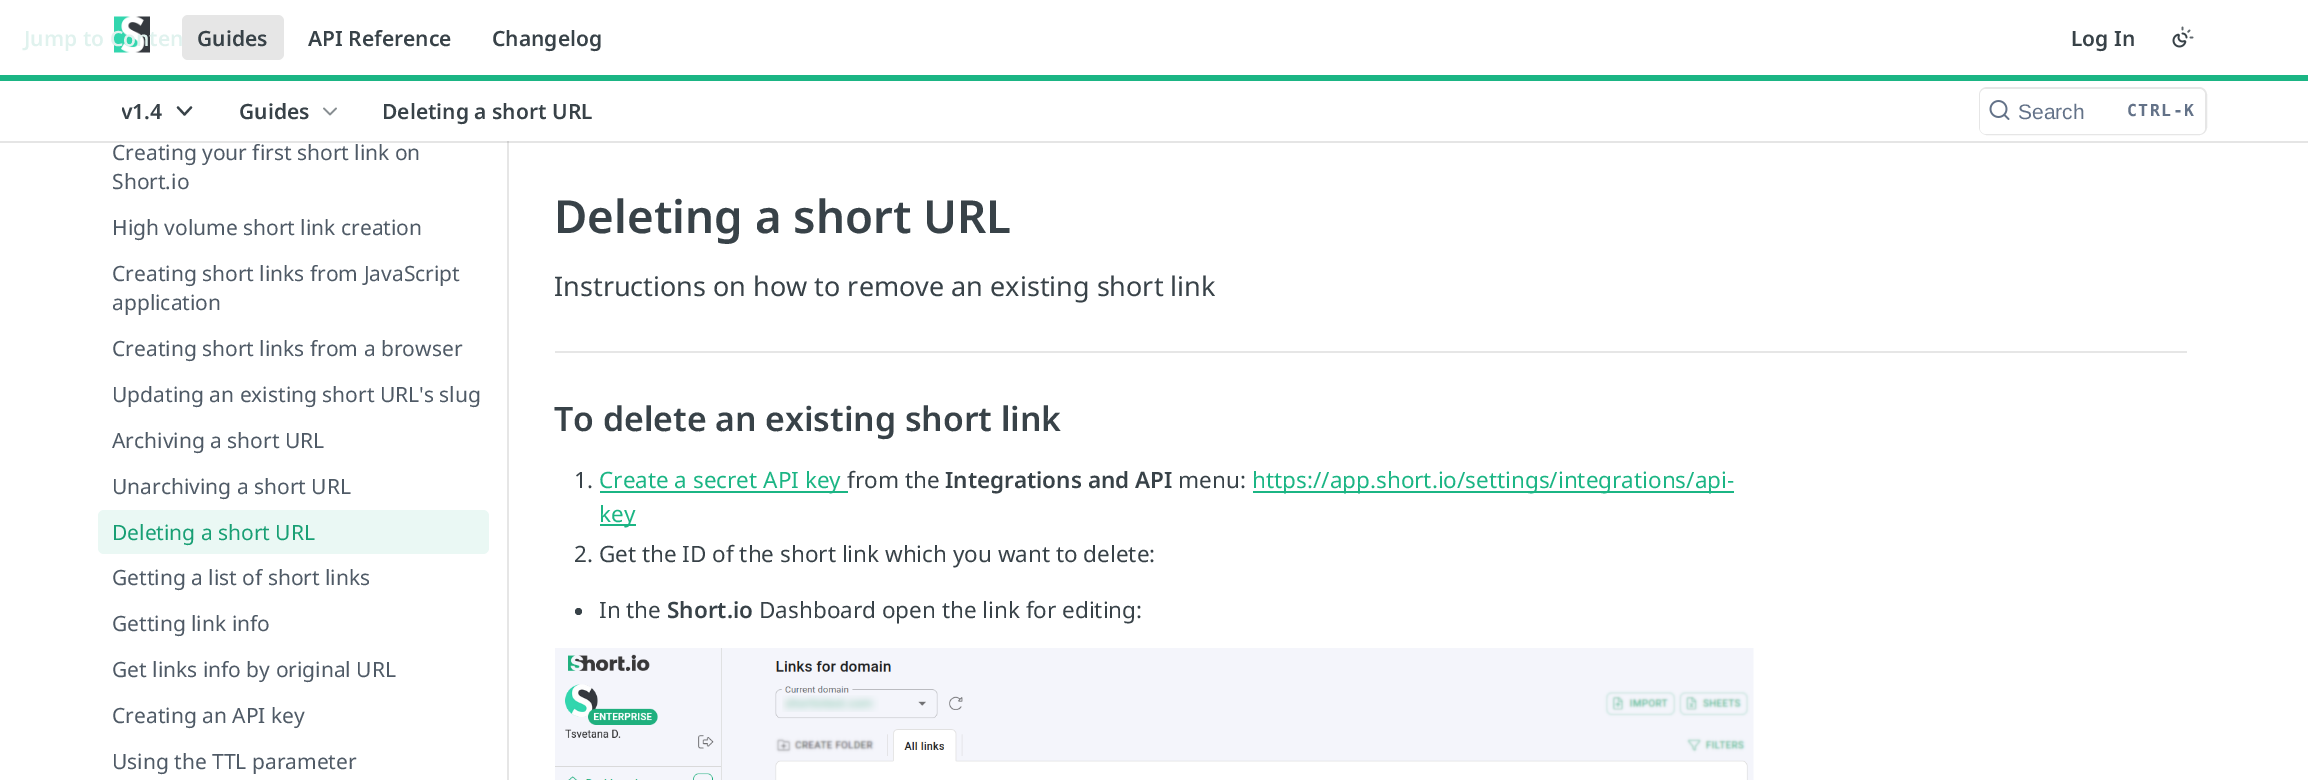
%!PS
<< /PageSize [2308 780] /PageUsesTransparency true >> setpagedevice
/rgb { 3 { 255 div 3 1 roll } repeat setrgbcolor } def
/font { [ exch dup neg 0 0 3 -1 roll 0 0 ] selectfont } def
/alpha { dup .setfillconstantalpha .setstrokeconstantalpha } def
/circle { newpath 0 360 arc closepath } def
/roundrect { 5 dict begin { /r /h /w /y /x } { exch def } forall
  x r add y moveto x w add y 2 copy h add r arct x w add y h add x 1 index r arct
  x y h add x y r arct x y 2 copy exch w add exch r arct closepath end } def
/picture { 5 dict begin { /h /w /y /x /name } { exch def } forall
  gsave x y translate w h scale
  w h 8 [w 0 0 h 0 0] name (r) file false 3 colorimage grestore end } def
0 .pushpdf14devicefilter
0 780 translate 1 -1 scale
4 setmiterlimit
255 255 255 rgb
0 0 2308 780 rectfill
230 230 230 rgb
507 141 2 639 rectfill
0.1 alpha
0 0 0 rgb
0 141 moveto 0 143 lineto 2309 143 lineto 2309 2 lineto 2308 2 lineto 2308 141 lineto closepath fill
1 alpha
27 181 132 rgb
0 75 2308 6 rectfill
(img/1.rgb) 114 16 36 37 picture
230 230 230 rgb
182 15 102 45 6 roundrect fill
(img/2.rgb) 2172 26 22 22 picture
56 66 72 rgb
2.2 setlinewidth
1 setlinecap
1 setlinejoin
178 107.5 moveto 184.5 114.5 lineto 191 107.5 lineto stroke
(img/3.rgb) 323 107 14 9 picture
230 230 230 rgb
2 setlinewidth
0 setlinecap
0 setlinejoin
1980 88 226 46 7 roundrect stroke
255 255 255 rgb
1980 89 225 45 6 roundrect fill
(img/4.rgb) 1989 100 21 20 picture
234 248 244 rgb
98 510 391 44 6 roundrect fill
[
  [555 351 1632 2 230 230 230]
  [600 491 248 2 27 181 132]
  [1253 491 481 2 27 181 132]
  [600 524 36 2 27 181 132]
] { aload pop rgb rectfill } forall
56 66 72 rgb
578.5 611.5 3.5 circle fill
(img/5.rgb) 555 648 1199 132 picture
/NotoSans-SemiBold 21 font
224 242 238 rgb
24 46 moveto (Jump to Conten) show
56 66 72 rgb
[
  [(Guides) 197 46]
  [(API Reference) 308 46]
  [(Changelog) 492 46]
  [(Log In) 2071 46]
] { aload pop moveto show } forall
gsave
122 98 40 28 rectclip
121 119 moveto (v1.4) show
grestore
239 119 moveto (Guides) show
382 119 moveto (Deleting a short URL) show
/LiberationSans-Regular 21 font
99 114 136 rgb
2018 119 moveto (Search) show
/DejaVuSansMono-Bold 16.5 font
2127 116 moveto 1.5 0 (CTRL-K) ashow
/NotoSans-Regular 21 font
79 90 102 rgb
[
  [(Creating your first short link on) 112 160]
  [(Short.io) 112 189]
  [(High volume short link creation) 112 235]
  [(Creating short links from JavaScript) 112 281]
  [(application) 112 310]
  [(Creating short links from a browser) 112 356]
  [(Updating an existing short URL's slug) 112 402]
  [(Archiving a short URL) 112 448]
  [(Unarchiving a short URL) 112 494]
] { aload pop moveto show } forall
24 159 116 rgb
112 540 moveto (Deleting a short URL) show
79 90 102 rgb
[
  [(Getting a list of short links) 112 585]
  [(Getting link info) 112 631]
  [(Get links info by original URL) 112 677]
  [(Creating an API key) 112 723]
  [(Using the TTL parameter) 112 769]
] { aload pop moveto show } forall
/NotoSans-SemiBold 45.6 font
56 66 72 rgb
554 233 moveto (Deleting a short URL) show
/NotoSans-Regular 27 font
554 296 moveto (Instructions on how to remove an existing short link) show
/NotoSans-SemiBold 33.75 font
554 431 moveto (To delete an existing short link) show
/NotoSans-Regular 22.5 font
574 488 moveto (1.) show
27 181 132 rgb
599 488 moveto (Create a secret API key) show
56 66 72 rgb
847 488 moveto (from the) show
/NotoSans-SemiBold 22.5 font
945 488 moveto (Integrations and API) show
/NotoSans-Regular 22.5 font
1178 488 moveto (menu:) show
27 181 132 rgb
1252 488 moveto (https://app.short.io/settings/integrations/api-) show
599 522 moveto (key) show
56 66 72 rgb
574 562 moveto (2. Get the ID of the short link which you want to delete:) show
599 618 moveto (In the) show
/NotoSans-SemiBold 22.5 font
667 618 moveto (Short.io) show
/NotoSans-Regular 22.5 font
759 618 moveto (Dashboard open the link for editing:) show
.poppdf14devicefilter showpage
